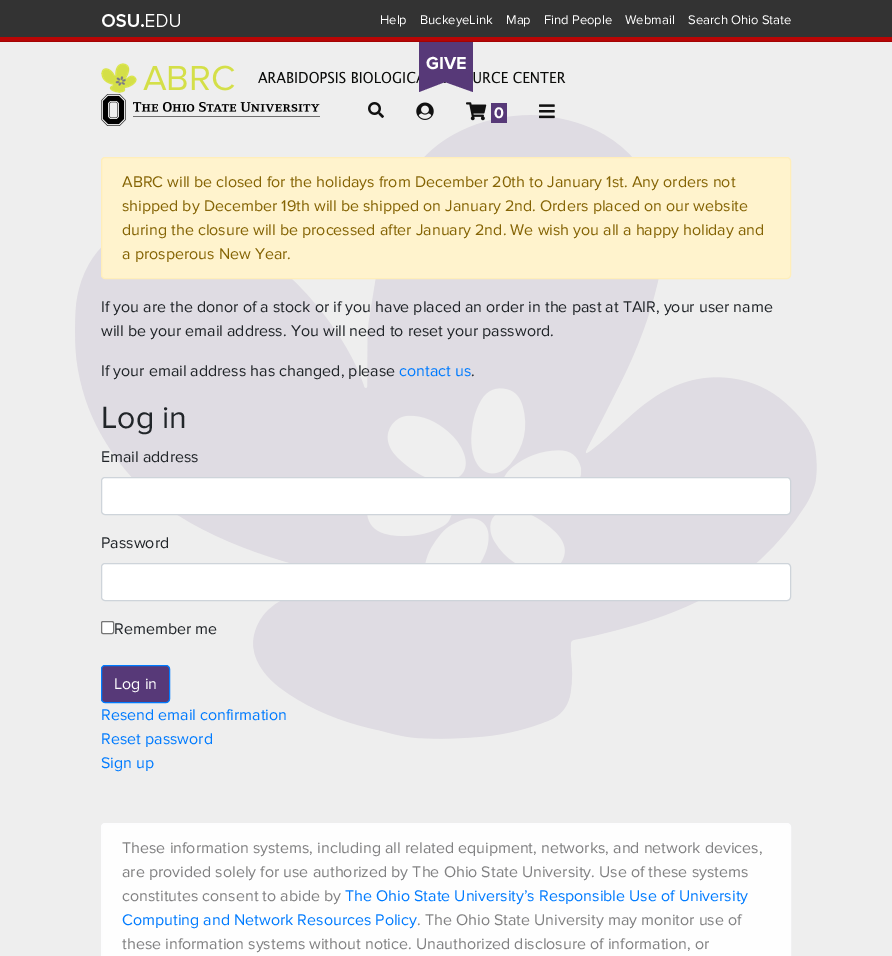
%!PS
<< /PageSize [892 956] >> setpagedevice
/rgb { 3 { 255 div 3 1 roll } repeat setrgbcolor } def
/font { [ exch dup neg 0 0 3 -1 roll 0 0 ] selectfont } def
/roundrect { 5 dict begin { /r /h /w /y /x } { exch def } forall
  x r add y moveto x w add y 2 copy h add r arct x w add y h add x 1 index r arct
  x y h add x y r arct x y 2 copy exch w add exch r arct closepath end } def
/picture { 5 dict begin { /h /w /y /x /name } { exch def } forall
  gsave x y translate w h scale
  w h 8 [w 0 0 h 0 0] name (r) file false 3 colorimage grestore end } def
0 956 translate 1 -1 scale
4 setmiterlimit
238 238 238 rgb
0 0 892 956 rectfill
(img/1.rgb) 75 115 742 624 picture
51 51 51 rgb
0 0 892 37 rectfill
(img/2.rgb) 0 37 892 5 picture
(img/3.rgb) 102 14 78 13 picture
(img/4.rgb) 101 63 465 30 picture
87 57 120 rgb
419 42 moveto 419 92 lineto 445 82 lineto 473 92 lineto 473 42 lineto closepath fill
(img/5.rgb) 101 94 219 32 picture
(img/6.rgb) 368 102 16 16 picture
(img/7.rgb) 416 102 18 18 picture
(img/8.rgb) 466 102 21 19 picture
491 103 16 20 rectfill
(img/9.rgb) 539 104 16 15 picture
255 243 205 rgb
101.5 157.5 689 121 3.5 roundrect gsave fill grestore
255 238 186 rgb
stroke
255 255 255 rgb
101.5 477.5 689 37 3.5 roundrect gsave fill grestore
206 212 218 rgb
stroke
255 255 255 rgb
101.5 563.5 689 37 3.5 roundrect gsave fill grestore
206 212 218 rgb
stroke
255 255 255 rgb
101.5 621.5 12 12 1.5 roundrect gsave fill grestore
118 118 118 rgb
stroke
87 57 120 rgb
101.5 665.5 68 37 3.5 roundrect gsave fill grestore
0 123 255 rgb
stroke
254 254 254 rgb
101.5 823.5 689 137 3.5 roundrect gsave fill grestore
253 253 254 rgb
stroke
/ProximaNova-Regular 13 font
255 255 255 rgb
[
  [(Help) 380 24]
  [(BuckeyeLink) 420 24]
  [(Map) 506 24]
  [(Find People) 544 24]
  [(Webmail) 625 24]
  [(Search Ohio State) 688 24]
] { aload pop moveto show } forall
/ProximaNova-Bold 18 font
426 69 moveto (GIVE) show
/ProximaNova-Bold 16 font
494 118 moveto (0) show
/ProximaNova-Regular 16 font
133 100 4 rgb
[
  [(ABRC will be closed for the holidays from December 20th to January 1st. Any orders not) 122 187]
  [(shipped by December 19th will be shipped on January 2nd. Orders placed on our website) 122 211]
  [(during the closure will be processed after January 2nd. We wish you all a happy holiday and) 122 235]
  [(a prosperous New Year.) 122 259]
] { aload pop moveto show } forall
33 37 41 rgb
[
  [(If you are the donor of a stock or if you have placed an order in the past at TAIR, your user name) 101 312]
  [(will be your email address. You will need to reset your password.) 101 336]
  [(If your email address has changed, please) 101 376]
] { aload pop moveto show } forall
0 123 255 rgb
399 376 moveto (contact us) show
33 37 41 rgb
471 376 moveto (.) show
/ProximaNova-Regular 32 font
101 428 moveto (Log in) show
/ProximaNova-Regular 16 font
[
  [(Email address) 101 462]
  [(Password) 101 548]
  [(Remember me) 114 634]
] { aload pop moveto show } forall
255 255 255 rgb
114 689 moveto (Log in) show
0 123 255 rgb
[
  [(Resend email confirmation) 101 720]
  [(Reset password) 101 744]
  [(Sign up) 101 768]
] { aload pop moveto show } forall
129 129 130 rgb
[
  [(These information systems, including all related equipment, networks, and network devices,) 122 853]
  [(are provided solely for use authorized by The Ohio State University. Use of these systems) 122 877]
  [(constitutes consent to abide by) 122 901]
] { aload pop moveto show } forall
0 123 255 rgb
345 901 moveto (The Ohio State University’s Responsible Use of University) show
122 925 moveto (Computing and Network Resources Policy) show
129 129 130 rgb
417 925 moveto (. The Ohio State University may monitor use of) show
122 949 moveto (these information systems without notice. Unauthorized disclosure of information, or) show
showpage
